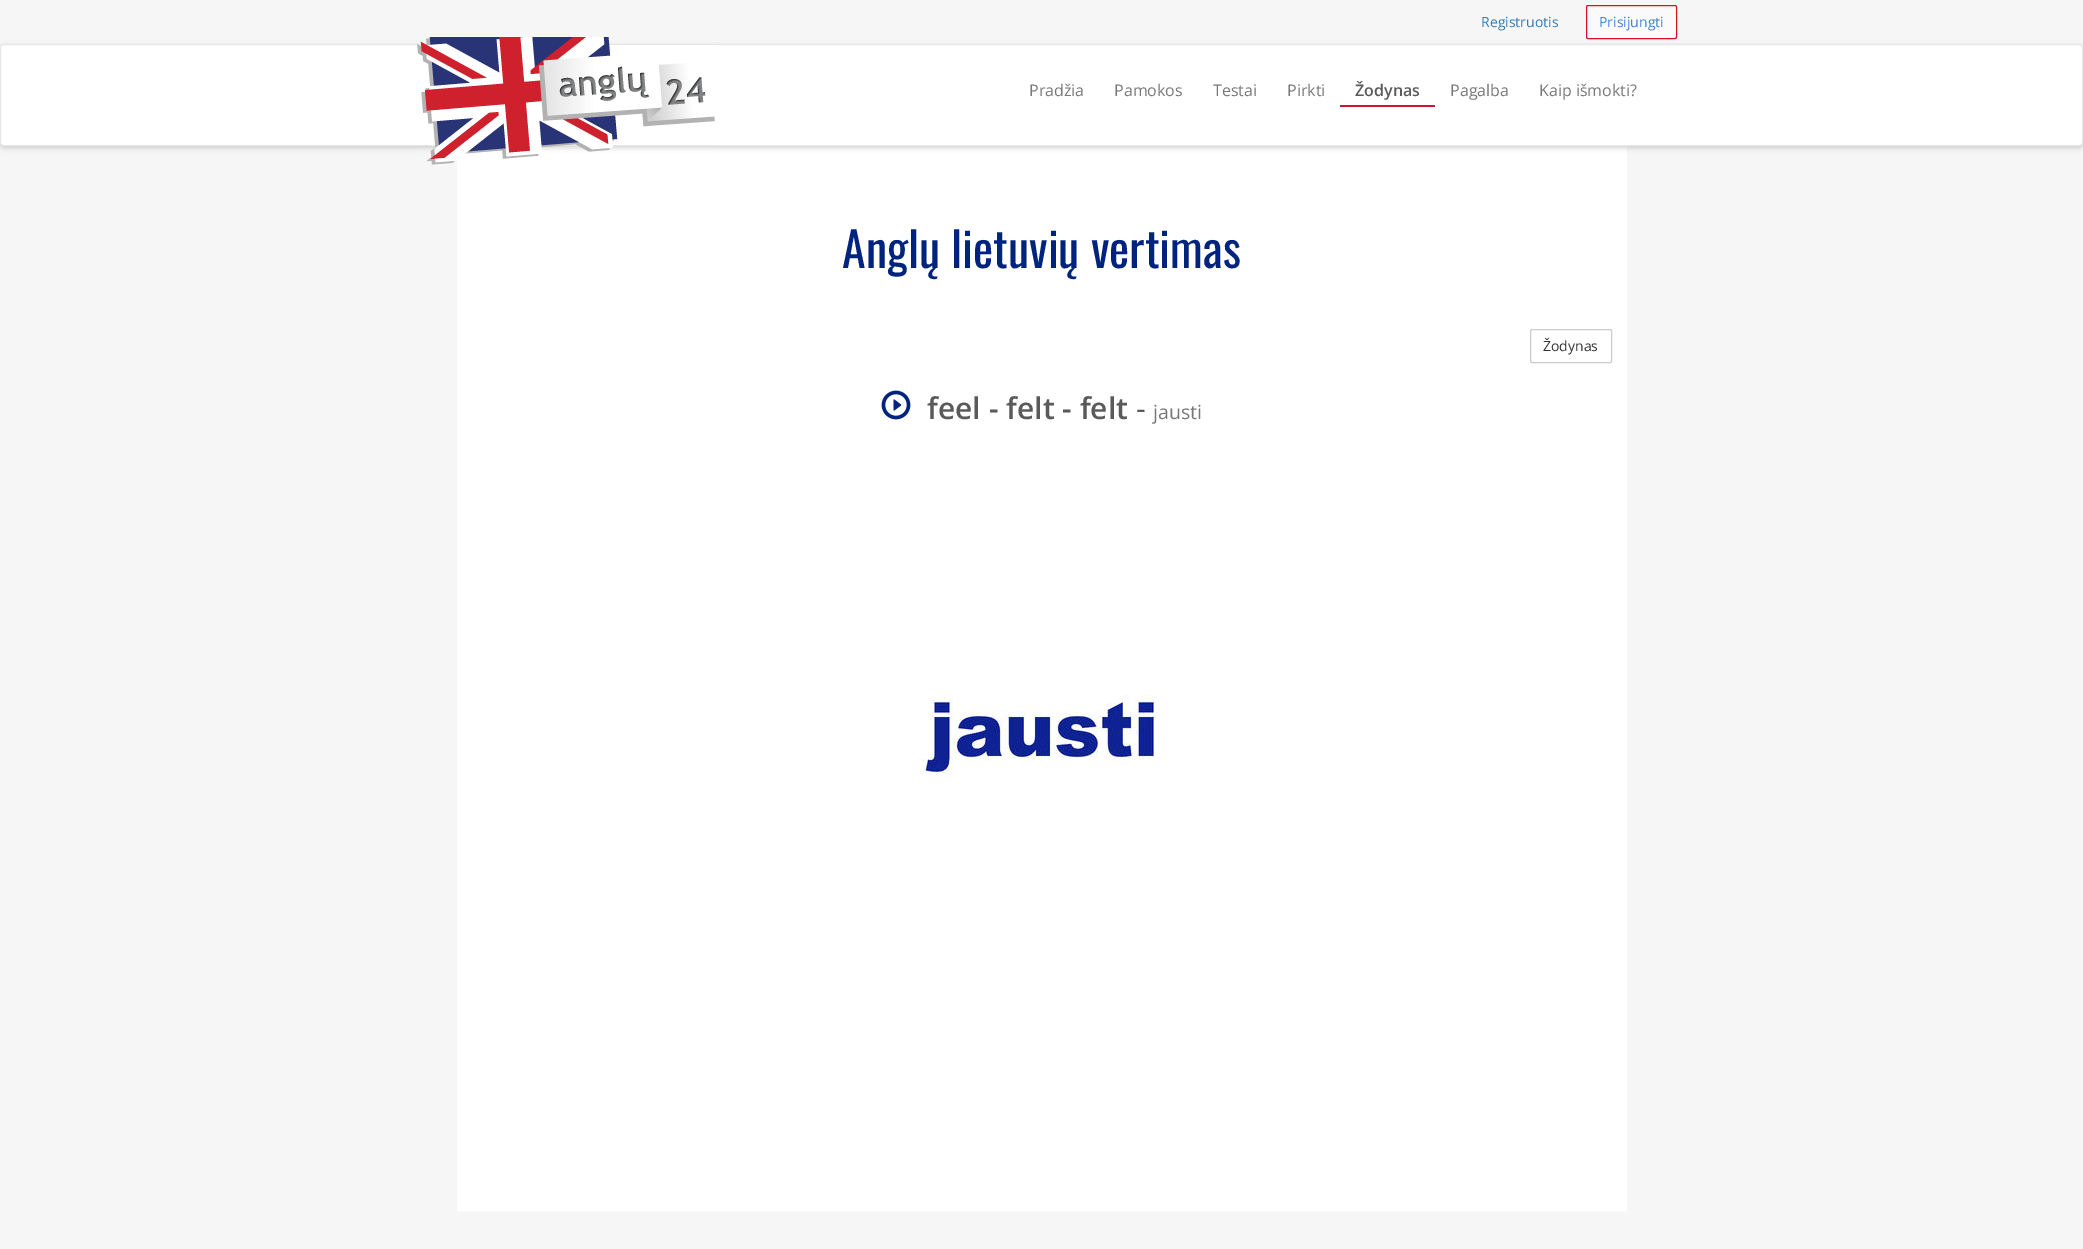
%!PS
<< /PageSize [2083 1249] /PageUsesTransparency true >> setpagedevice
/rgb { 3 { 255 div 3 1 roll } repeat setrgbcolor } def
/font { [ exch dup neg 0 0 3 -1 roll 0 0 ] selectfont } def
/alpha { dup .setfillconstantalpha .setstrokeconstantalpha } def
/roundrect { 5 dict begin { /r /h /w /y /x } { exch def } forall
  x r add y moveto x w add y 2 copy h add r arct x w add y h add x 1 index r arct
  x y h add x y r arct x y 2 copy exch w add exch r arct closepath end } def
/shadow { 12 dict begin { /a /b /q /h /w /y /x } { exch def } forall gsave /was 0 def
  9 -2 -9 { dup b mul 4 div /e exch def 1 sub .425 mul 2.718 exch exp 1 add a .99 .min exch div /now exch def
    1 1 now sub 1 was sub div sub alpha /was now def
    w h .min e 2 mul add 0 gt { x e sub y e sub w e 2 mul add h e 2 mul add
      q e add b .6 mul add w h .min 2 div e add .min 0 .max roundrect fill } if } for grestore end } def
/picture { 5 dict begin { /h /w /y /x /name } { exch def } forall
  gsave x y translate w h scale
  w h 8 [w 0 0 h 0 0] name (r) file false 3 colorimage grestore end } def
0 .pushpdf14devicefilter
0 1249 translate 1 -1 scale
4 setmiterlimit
246 246 246 rgb
0 0 2083 1249 rectfill
250 250 250 rgb
1586.5 5.5 90 33 1.5 roundrect gsave fill grestore
207 20 43 rgb
stroke
255 255 255 rgb
457 146 1170 1065 rectfill
0 0 0 rgb
0 46 2083 102 4 2.5 0.17 shadow
255 255 255 rgb
0.5 44.5 2082 101 3.5 roundrect gsave fill grestore
231 231 231 rgb
stroke
(img/1.rgb) 417 37 298 128 picture
207 20 43 rgb
1340 105 95 2 rectfill
250 250 250 rgb
457 1211 1170 1 rectfill
204 204 204 rgb
1530.5 329.5 81 33 1.5 roundrect stroke
(img/2.rgb) 881 390 30 30 picture
(img/3.rgb) 922 695 232 80 picture
/OpenSans-Regular 14 font
51 122 183 rgb
1481 27 moveto (Registruotis) show
62 130 217 rgb
1599 27 moveto (Prisijungti) show
/OpenSans-Regular 16 font
119 119 119 rgb
[
  [(Pradžia) 1029 96]
  [(Pamokos) 1114 96]
  [(Testai) 1213 96]
  [(Pirkti) 1287 96]
] { aload pop moveto show } forall
/OpenSans-SemiBold 16 font
90 90 90 rgb
1355 96 moveto (Žodynas) show
/OpenSans-Regular 16 font
119 119 119 rgb
1450 96 moveto (Pagalba) show
1539 96 moveto (Kaip išmokti?) show
/Oswald-Regular 48 font
0 36 125 rgb
842 268 moveto (Anglų lietuvių vertimas) show
/OpenSans-Regular 14 font
51 51 51 rgb
1543 351 moveto (Žodynas) show
/OpenSans-SemiBold 30 font
90 90 90 rgb
927 419 moveto (feel - felt - felt) show
/OpenSans-Regular 30 font
1136 419 moveto (-) show
/OpenSans-Regular 19.5 font
119 119 119 rgb
1153 419 moveto (jausti) show
.poppdf14devicefilter showpage
